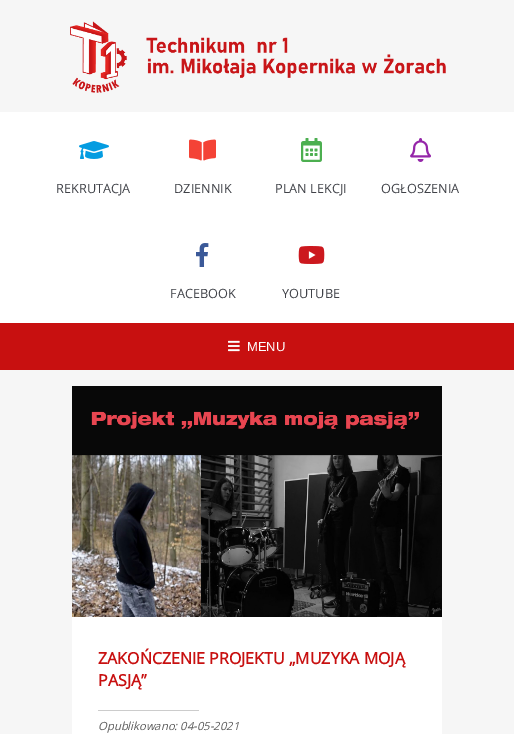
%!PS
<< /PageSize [514 734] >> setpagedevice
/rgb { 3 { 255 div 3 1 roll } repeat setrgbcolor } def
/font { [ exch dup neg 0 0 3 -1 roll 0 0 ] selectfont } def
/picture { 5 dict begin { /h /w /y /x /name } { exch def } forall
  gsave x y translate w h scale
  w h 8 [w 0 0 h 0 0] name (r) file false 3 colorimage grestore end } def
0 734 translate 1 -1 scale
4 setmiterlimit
246 246 246 rgb
0 0 514 734 rectfill
(img/1.rgb) 70 21 376 72 picture
255 255 255 rgb
0 112 514 211 rectfill
(img/2.rgb) 79 141 30 18 picture
(img/3.rgb) 189 139 27 22 picture
(img/4.rgb) 301 138 21 24 picture
(img/5.rgb) 410 138 21 24 picture
(img/6.rgb) 196 243 13 24 picture
(img/7.rgb) 298 246 27 18 picture
200 16 16 rgb
0 323 514 47 rectfill
(img/8.rgb) 228 340 12 12 picture
255 255 255 rgb
72 617 370 117 rectfill
(img/9.rgb) 72 386 370 231 picture
204 204 204 rgb
98 710 101 1 rectfill
/OpenSans-Regular 12.75 font
64 66 72 rgb
[
  [(REKRUTACJA) 56 193]
  [(DZIENNIK) 174 193]
  [(PLAN LEKCJI) 275 193]
  [(OGŁOSZENIA) 381 193]
  [(FACEBOOK) 170 298]
  [(YOUTUBE) 282 298]
] { aload pop moveto show } forall
/LiberationSans-Regular 13 font
255 255 255 rgb
247 351 moveto (MENU) show
/OpenSans-Bold 16 font
200 16 16 rgb
98 664 moveto (ZAKOŃCZENIE PROJEKTU „MUZYKA MOJĄ) show
98 686 moveto (PASJĄ”) show
/OpenSans-Italic 11.25 font
94 94 94 rgb
98 730 moveto (Opublikowano: 04-05-2021) show
showpage
